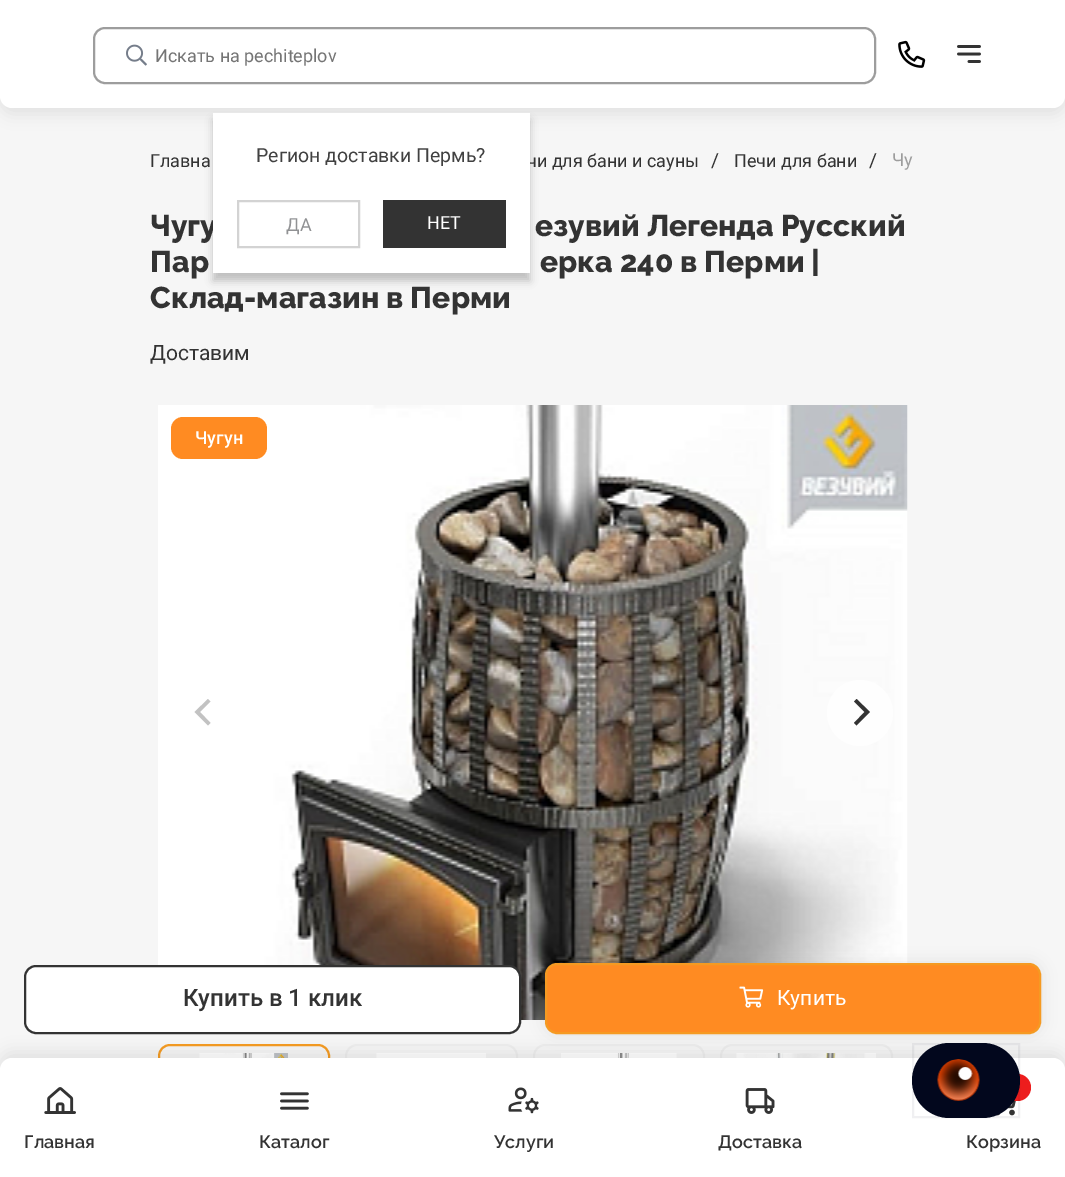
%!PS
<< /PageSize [1065 1177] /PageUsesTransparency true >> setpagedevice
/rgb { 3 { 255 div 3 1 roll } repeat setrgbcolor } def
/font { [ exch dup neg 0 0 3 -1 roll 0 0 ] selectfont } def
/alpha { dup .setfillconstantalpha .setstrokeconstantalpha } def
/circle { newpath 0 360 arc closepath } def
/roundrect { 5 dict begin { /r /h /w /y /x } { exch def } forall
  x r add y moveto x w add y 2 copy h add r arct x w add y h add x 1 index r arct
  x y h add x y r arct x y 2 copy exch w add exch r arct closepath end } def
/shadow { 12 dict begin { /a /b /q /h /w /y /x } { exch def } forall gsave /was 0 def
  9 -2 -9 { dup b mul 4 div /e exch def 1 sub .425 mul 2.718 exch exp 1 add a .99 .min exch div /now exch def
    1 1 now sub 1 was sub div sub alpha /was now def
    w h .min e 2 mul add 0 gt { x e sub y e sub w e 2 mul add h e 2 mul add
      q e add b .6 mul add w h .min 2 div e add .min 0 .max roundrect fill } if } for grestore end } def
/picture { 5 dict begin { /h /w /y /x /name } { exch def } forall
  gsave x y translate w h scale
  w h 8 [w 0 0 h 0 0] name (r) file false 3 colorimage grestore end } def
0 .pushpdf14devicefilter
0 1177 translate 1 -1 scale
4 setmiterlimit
246 246 246 rgb
0 0 1065 1177 rectfill
51 51 51 rgb
0 6 1065 108 12 7.5 0.1 shadow
255 255 255 rgb
0 0 moveto 1065 0 lineto 1065 96 lineto 1065 102.5 1059.5 108 1053 108 curveto 12 108 lineto 5.5 108 0 102.5 0 96 curveto closepath fill
157 157 157 rgb
2 setlinewidth
94 28 781 55 11 roundrect stroke
(img/1.rgb) 126 44 21 22 picture
(img/2.rgb) 898 40 28 28 picture
(img/3.rgb) 957 45 24 18 picture
0 0 0 rgb
213 120 317 161 0 4 0.22 shadow
(img/4.rgb) 158 405 750 615 picture
194 194 194 rgb
194.5 712 moveto 208 725.5 lineto 210.5 723 lineto 200 712 lineto 210.5 701.5 lineto 208 699 lineto closepath fill
0.75 alpha
255 255 255 rgb
860 713 33 circle fill
1 alpha
51 51 51 rgb
870 712 moveto 856.5 699 lineto 854 701.5 lineto 864.5 712 lineto 854 723 lineto 856.5 725.5 lineto closepath fill
255 139 34 rgb
171 417 96 42 12 roundrect fill
245 154 34 rgb
159 1045 170 121 11 roundrect stroke
(img/5.rgb) 199 1053 89 5 picture
237 237 237 rgb
346 1045 171 121 11 roundrect stroke
(img/6.rgb) 376 1053 110 5 picture
534 1045 170 121 11 roundrect stroke
(img/7.rgb) 561 1053 116 5 picture
721 1045 171 121 11 roundrect stroke
(img/8.rgb) 736 1053 140 5 picture
255 255 255 rgb
25 966 495 67 11 roundrect gsave fill grestore
51 51 51 rgb
stroke
545 963 496 71 12 7.5 0.1 shadow
255 139 34 rgb
546 964 494 69 11 roundrect gsave fill grestore
245 154 34 rgb
stroke
(img/9.rgb) 739 986 25 22 picture
51 51 51 rgb
0 1052 1065 120 12 7.5 0.1 shadow
255 255 255 rgb
12 1058 moveto 1053 1058 lineto 1059.5 1058 1065 1063.5 1065 1070 curveto 1065 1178 lineto 0 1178 lineto 0 1070 lineto 0 1063.5 5.5 1058 12 1058 curveto closepath fill
(img/15.rgb) 996 1100 20 16 picture
237 29 29 rgb
1017.5 1087.5 13.5 circle fill
2 7 29 rgb
912 1043 108 75 37.5 roundrect fill
0.06 alpha
913 1044 106 73 rectstroke
1 alpha
(img/10.rgb) 937 1059 43 42 picture
(img/11.rgb) 44 1087 32 27 picture
(img/12.rgb) 280 1092 29 18 picture
(img/13.rgb) 508 1087 31 27 picture
(img/14.rgb) 745 1088 30 26 picture
/Roboto-Regular 18 font
117 117 117 rgb
155 62 moveto (Искать на pechiteplov) show
51 51 51 rgb
150 167 moveto (Главна) show
527 167 moveto (чи для бани и сауны) show
/Roboto-Regular 19.5 font
711 167 moveto (/) show
/Roboto-Regular 18 font
734 167 moveto (Печи для бани) show
/Roboto-Regular 19.5 font
869 167 moveto (/) show
/Roboto-Regular 18 font
157 157 157 rgb
892 166 moveto (Чу) show
/Raleway-ExtraBold 30 font
51 51 51 rgb
150 236 moveto (Чугу) show
255 255 255 rgb
213 113 317 160 rectfill
51 51 51 rgb
383 200 123 48 rectfill
/Roboto-Regular 18 font
255 255 255 rgb
427 229 moveto (НЕТ) show
211 211 211 rgb
238 201 121 46 rectstroke
145 146 148 rgb
286 231 moveto (ДА) show
/Roboto-Regular 19.5 font
65 65 65 rgb
256 162 moveto (Регион доставки Пермь?) show
/Raleway-ExtraBold 30 font
51 51 51 rgb
[
  [(езувий Легенда Русский) 535 236]
  [(Пар) 150 272]
  [(ерка 240 в Перми |) 540 272]
  [(Склад-магазин в Перми) 150 308]
] { aload pop moveto show } forall
/Roboto-Regular 21 font
150 360 moveto (Доставим) show
/Roboto-Medium 18 font
255 255 255 rgb
195 444 moveto (Чугун) show
/Roboto-Medium 24 font
51 51 51 rgb
183 1006 moveto (Купить в 1 клик) show
/Roboto-Regular 21 font
255 255 255 rgb
777 1005 moveto (Купить) show
/Raleway-SemiBold 18 font
51 51 51 rgb
[
  [(Главная) 24 1148]
  [(Каталог) 259 1148]
  [(Услуги) 494 1148]
  [(Доставка) 718 1148]
  [(Корзина) 966 1148]
] { aload pop moveto show } forall
.poppdf14devicefilter showpage
